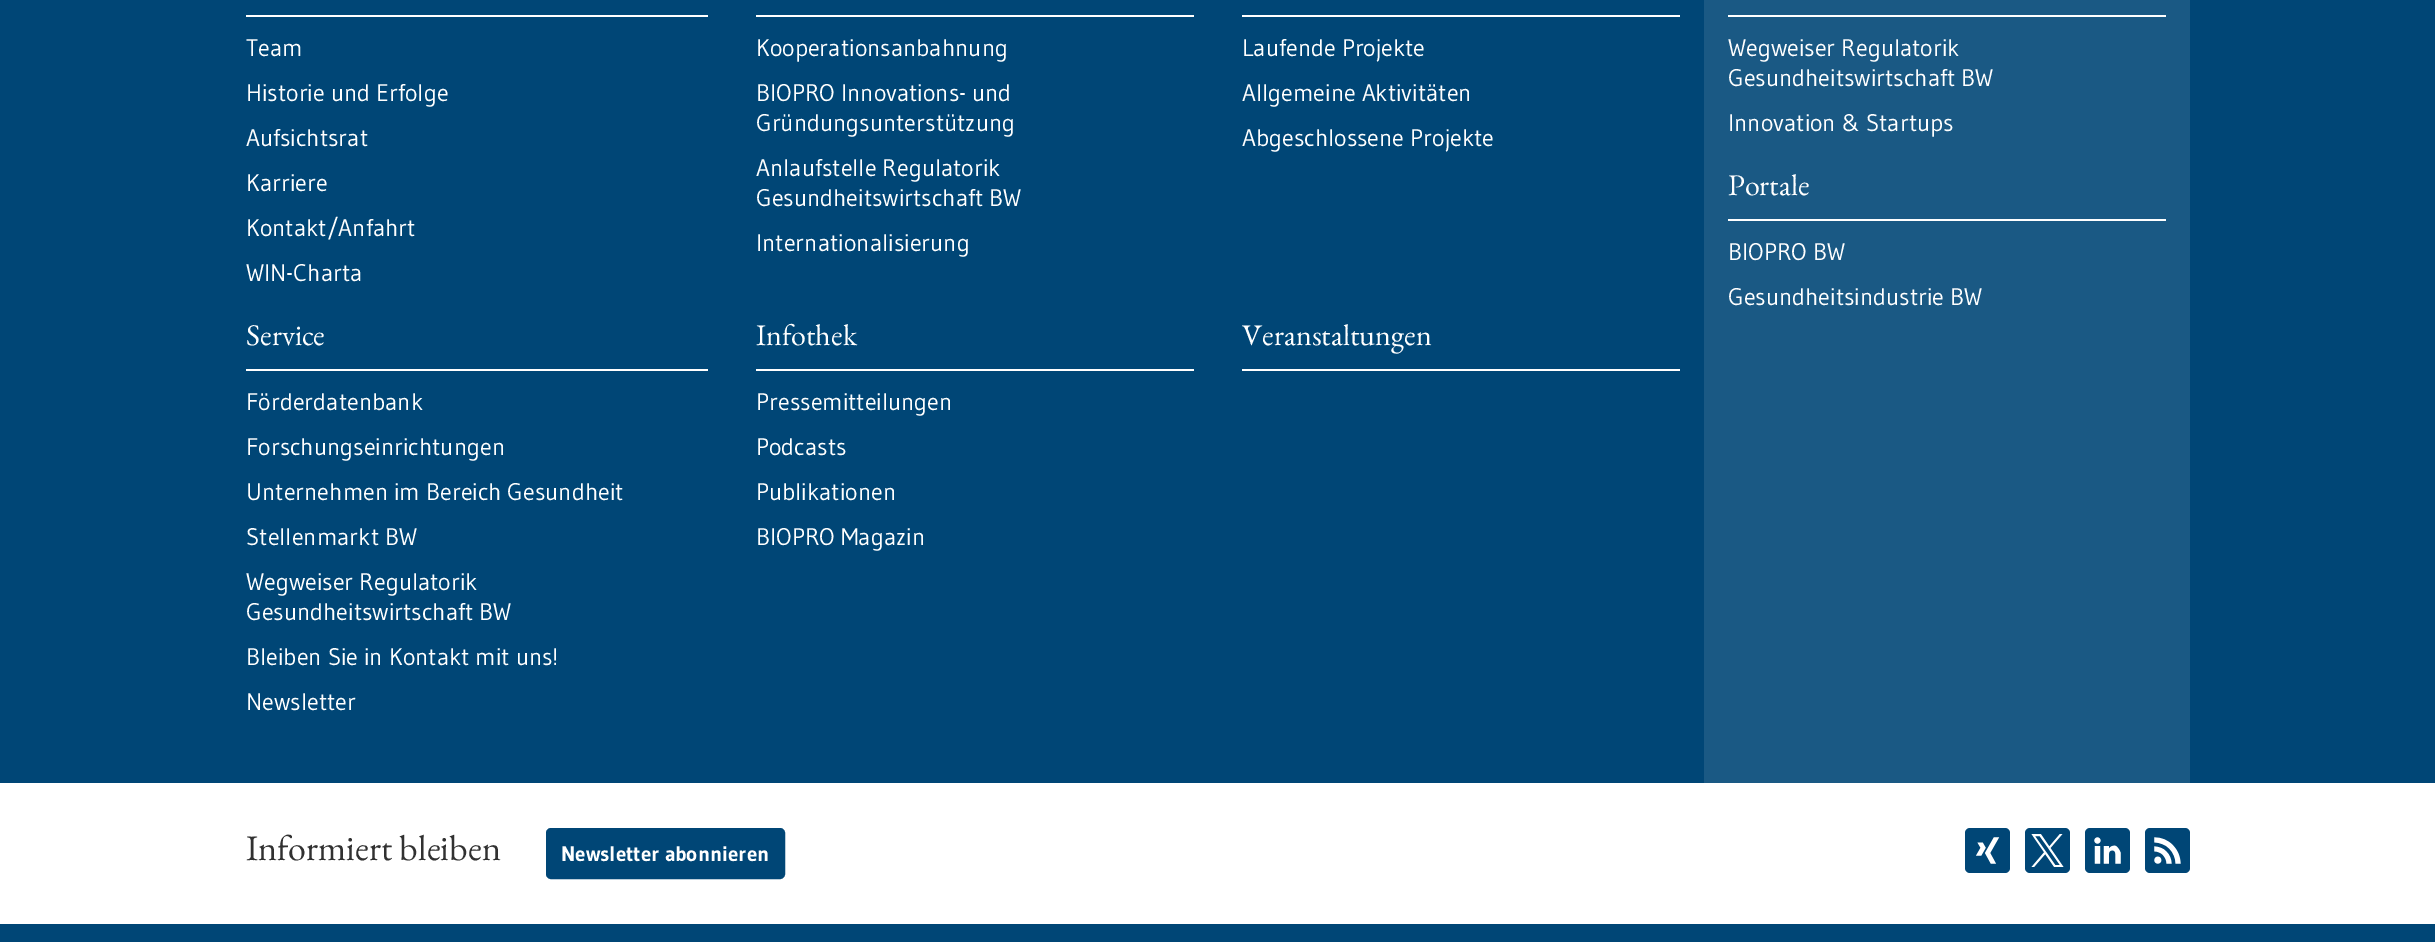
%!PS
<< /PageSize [2435 942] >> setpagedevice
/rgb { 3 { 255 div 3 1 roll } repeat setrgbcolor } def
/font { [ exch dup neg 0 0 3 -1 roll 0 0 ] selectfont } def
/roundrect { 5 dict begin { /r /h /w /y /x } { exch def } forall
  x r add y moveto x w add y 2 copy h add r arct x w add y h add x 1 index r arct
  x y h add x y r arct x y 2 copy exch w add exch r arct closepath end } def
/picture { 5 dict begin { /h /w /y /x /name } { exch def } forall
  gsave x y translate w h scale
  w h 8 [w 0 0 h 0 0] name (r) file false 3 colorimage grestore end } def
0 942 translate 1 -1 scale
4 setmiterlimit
255 255 255 rgb
0 0 2435 942 rectfill
[
  [0 0 2435 783 0 70 118]
  [246 15 462 2 255 255 255]
  [756 15 438 2 255 255 255]
  [1242 15 438 2 255 255 255]
  [246 369 462 2 255 255 255]
  [756 369 438 2 255 255 255]
  [1242 369 438 2 255 255 255]
  [1704 0 486 783 26 89 132]
  [1728 15 438 2 255 255 255]
  [1728 219 438 2 255 255 255]
] { aload pop rgb rectfill } forall
0 70 118 rgb
547 829 237 49 4 roundrect gsave fill grestore
2 setlinewidth
stroke
1965 828 45 45 5 roundrect fill
(img/1.rgb) 1976 837 24 27 picture
2025 828 45 45 5 roundrect fill
(img/2.rgb) 2031 834 33 33 picture
2085 828 45 45 5 roundrect fill
(img/3.rgb) 2094 837 27 27 picture
2145 828 45 45 5 roundrect fill
(img/4.rgb) 2154 837 27 27 picture
0 924 2435 18 rectfill
/Gudea-Regular 24 font
255 255 255 rgb
[
  [(Team) 246 56]
  [(Historie und Erfolge) 246 101]
  [(Aufsichtsrat) 246 146]
  [(Karriere) 246 191]
  [(Kontakt/Anfahrt) 246 236]
  [(WIN-Charta) 246 281]
  [(Kooperationsanbahnung) 756 56]
  [(BIOPRO Innovations- und) 756 101]
  [(Gründungsunterstützung) 756 131]
  [(Anlaufstelle Regulatorik) 756 176]
  [(Gesundheitswirtschaft BW) 756 206]
  [(Internationalisierung) 756 251]
  [(Laufende Projekte) 1242 56]
  [(Allgemeine Aktivitäten) 1242 101]
  [(Abgeschlossene Projekte) 1242 146]
] { aload pop moveto show } forall
/EBGaramond-Regular 30 font
246 345 moveto (Service) show
/Gudea-Regular 24 font
[
  [(Förderdatenbank) 246 410]
  [(Forschungseinrichtungen) 246 455]
  [(Unternehmen im Bereich Gesundheit) 246 500]
  [(Stellenmarkt BW) 246 545]
  [(Wegweiser Regulatorik) 246 590]
  [(Gesundheitswirtschaft BW) 246 620]
  [(Bleiben Sie in Kontakt mit uns!) 246 665]
  [(Newsletter) 246 710]
] { aload pop moveto show } forall
/EBGaramond-Regular 30 font
756 345 moveto (Infothek) show
/Gudea-Regular 24 font
[
  [(Pressemitteilungen) 756 410]
  [(Podcasts) 756 455]
  [(Publikationen) 756 500]
  [(BIOPRO Magazin) 756 545]
] { aload pop moveto show } forall
/EBGaramond-Regular 30 font
1242 345 moveto (Veranstaltungen) show
/Gudea-Regular 24 font
[
  [(Wegweiser Regulatorik) 1728 56]
  [(Gesundheitswirtschaft BW) 1728 86]
  [(Innovation & Startups) 1728 131]
] { aload pop moveto show } forall
/EBGaramond-Regular 30 font
1728 195 moveto (Portale) show
/Gudea-Regular 24 font
1728 260 moveto (BIOPRO BW) show
1728 305 moveto (Gesundheitsindustrie BW) show
/EBGaramond-Regular 36 font
49 49 49 rgb
246 860 moveto (Informiert bleiben) show
/Gudea-Bold 21 font
255 255 255 rgb
561 861 moveto (Newsletter abonnieren) show
showpage
